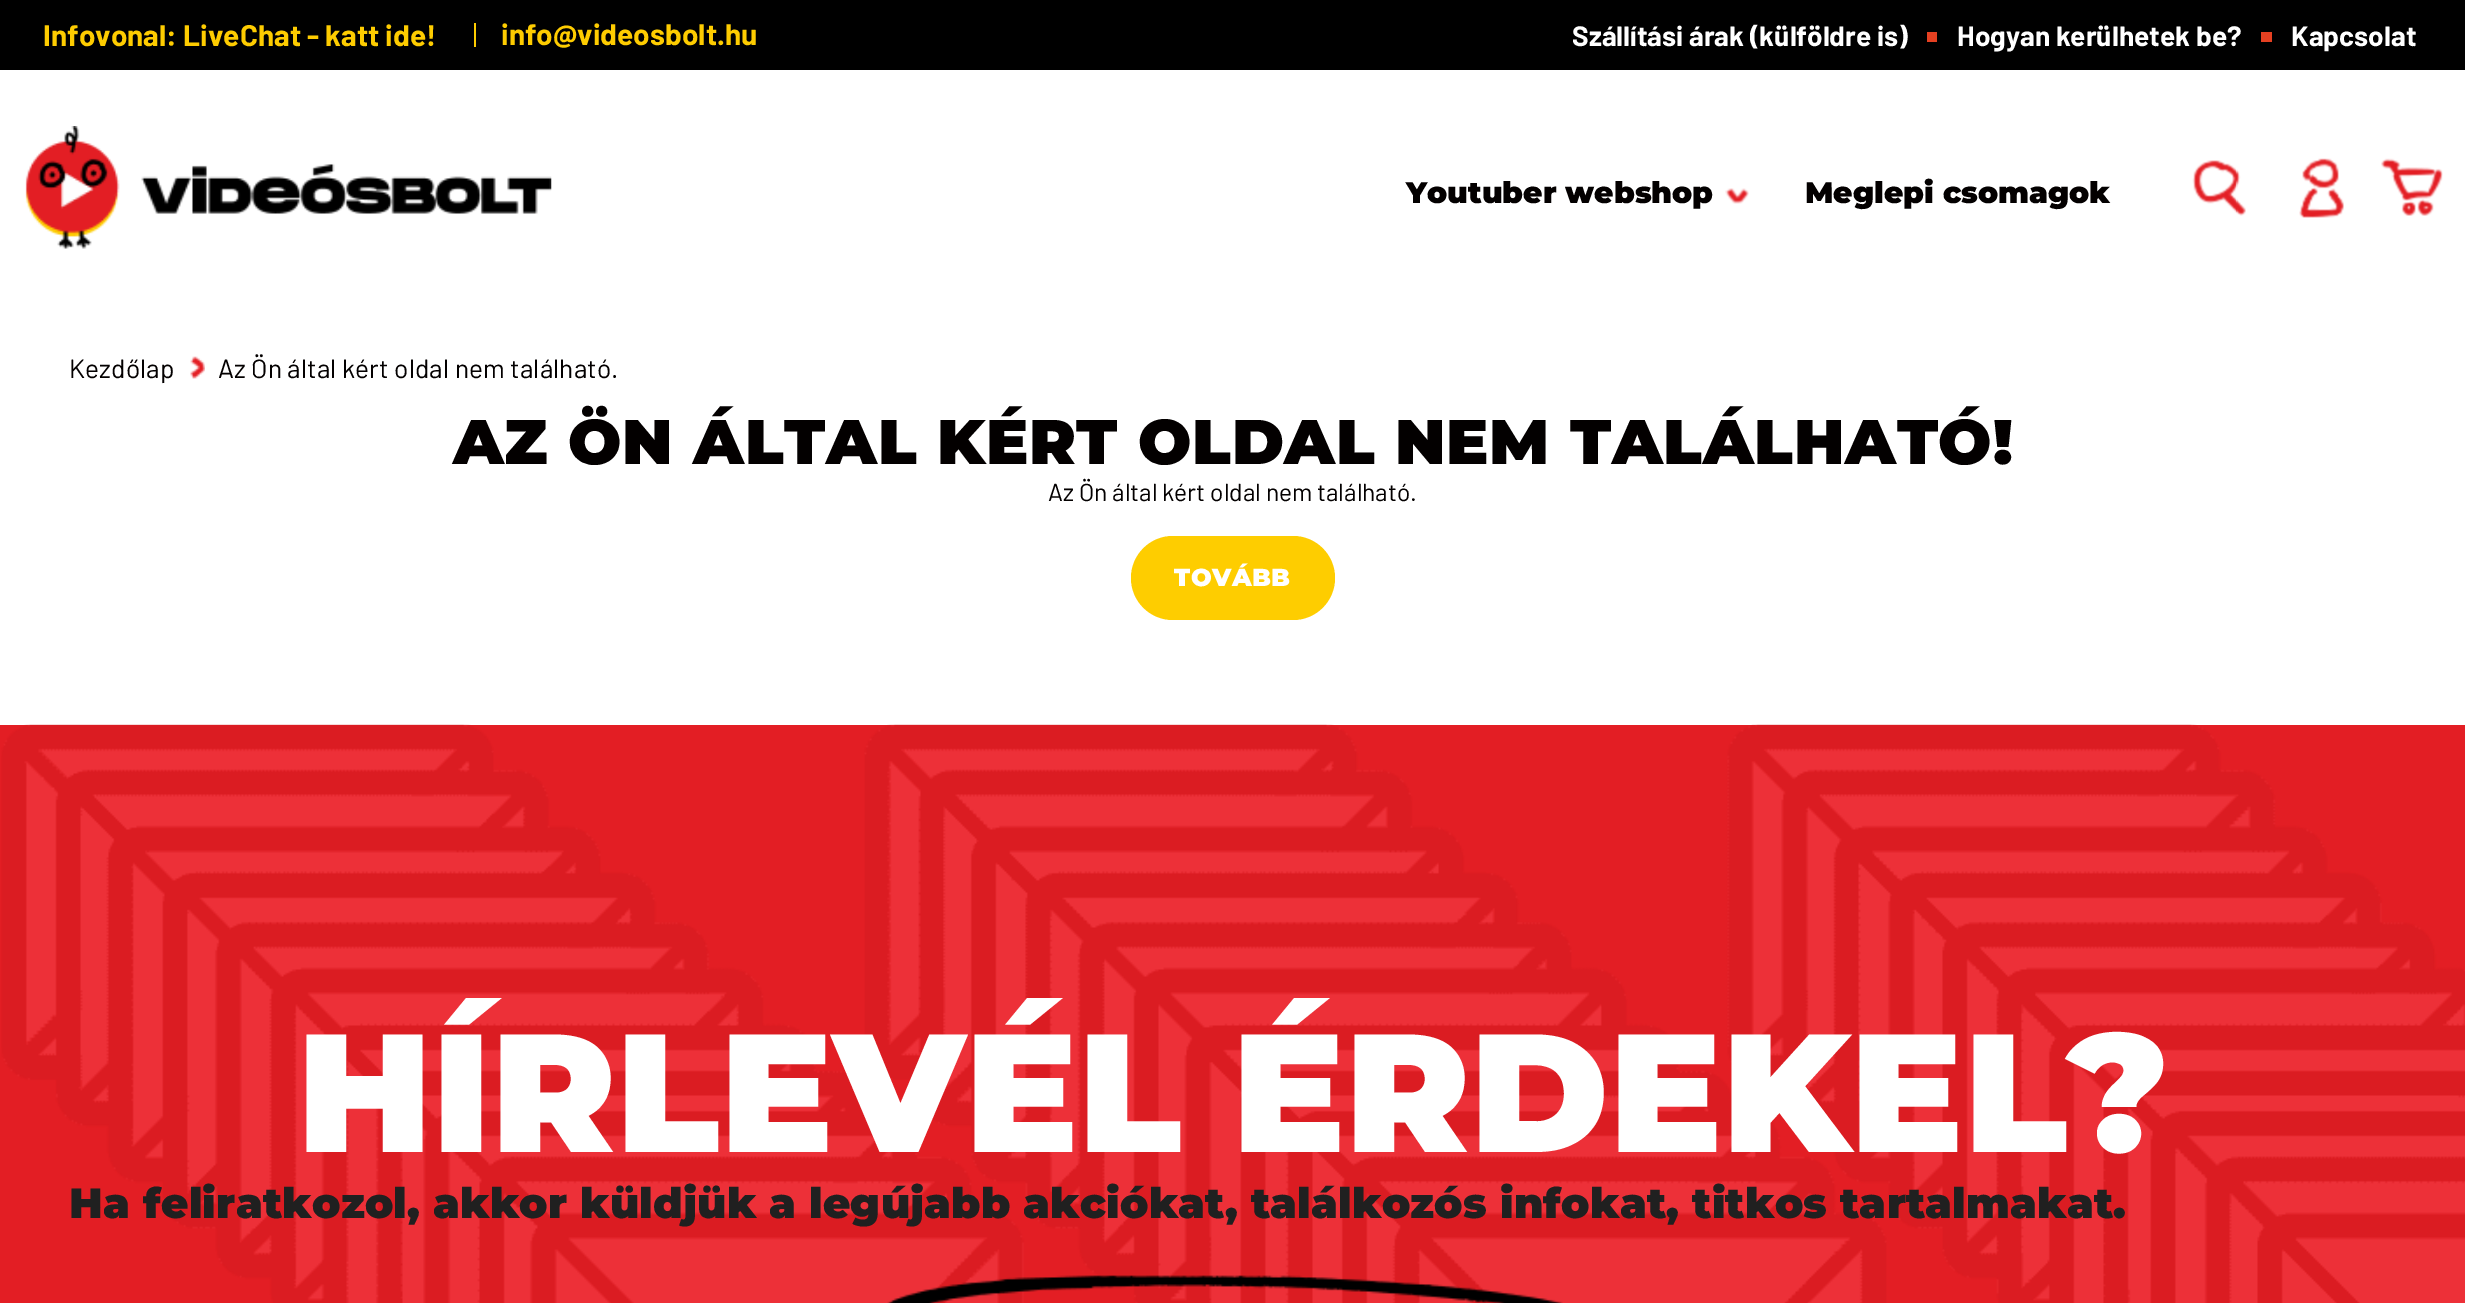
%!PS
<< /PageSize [2465 1303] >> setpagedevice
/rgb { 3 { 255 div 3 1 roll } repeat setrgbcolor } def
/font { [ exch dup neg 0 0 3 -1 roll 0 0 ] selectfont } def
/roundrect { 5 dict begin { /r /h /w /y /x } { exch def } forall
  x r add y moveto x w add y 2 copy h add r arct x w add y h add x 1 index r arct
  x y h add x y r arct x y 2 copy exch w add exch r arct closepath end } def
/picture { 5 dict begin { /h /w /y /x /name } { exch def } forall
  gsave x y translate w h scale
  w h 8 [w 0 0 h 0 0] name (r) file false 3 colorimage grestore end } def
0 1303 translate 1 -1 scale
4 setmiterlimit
255 255 255 rgb
0 0 2465 1303 rectfill
[
  [0 0 2465 70 0 0 0]
  [474 23 2 24 254 204 0]
  [1927 32 10 10 229 64 33]
  [2261 32 11 10 229 64 33]
] { aload pop rgb rectfill } forall
(img/1.rgb) 25 126 527 123 picture
(img/2.rgb) 1725 188 24 16 picture
(img/3.rgb) 2192 160 54 56 picture
(img/4.rgb) 2299 158 45 60 picture
(img/5.rgb) 2381 158 62 58 picture
(img/6.rgb) 190 356 15 23 picture
254 205 0 rgb
1131 536 204 84 42 roundrect fill
227 30 36 rgb
0 725 2465 578 rectfill
(img/7.rgb) 1 724 2464 579 picture
(img/8.rgb) 887 1275 676 28 picture
/Barlow-Bold 29.75 font
254 204 0 rgb
43 46 moveto (Infovonal: LiveChat - katt ide!) show
501 45 moveto (info@videosbolt.hu) show
/Barlow-Bold 28 font
255 255 255 rgb
[
  [(Szállítási árak \(külföldre is\)) 1572 46]
  [(Hogyan kerülhetek be?) 1957 46]
  [(Kapcsolat) 2291 46]
] { aload pop moveto show } forall
/Montserrat-Black 29.75 font
3 0 0 rgb
1406 203 moveto (Youtuber webshop) show
1805 203 moveto (Meglepi csomagok) show
/Barlow-Regular 26.25 font
69 378 moveto 0.15 0 (Kezdőlap) ashow
218 378 moveto 0.15 0 (Az Ön által kért oldal nem található.) ashow
/Montserrat-Black 63 font
453 464 moveto 0.7 0 (AZ ÖN ÁLTAL KÉRT OLDAL NEM TALÁLHATÓ!) ashow
/Barlow-Regular 24.5 font
1048 501 moveto (Az Ön által kért oldal nem található.) show
/Montserrat-Black 24.5 font
255 255 255 rgb
1174 586 moveto 0.5 0 (TOVÁBB) ashow
/Montserrat-Black 168 font
297 1152 moveto (HÍRLEVÉL ÉRDEKEL?) show
/Montserrat-Black 42 font
32 32 32 rgb
69 1218 moveto 0.2 0 (Ha feliratkozol, akkor küldjük a legújabb akciókat, találkozós infokat, titkos tartalmakat.) ashow
showpage
